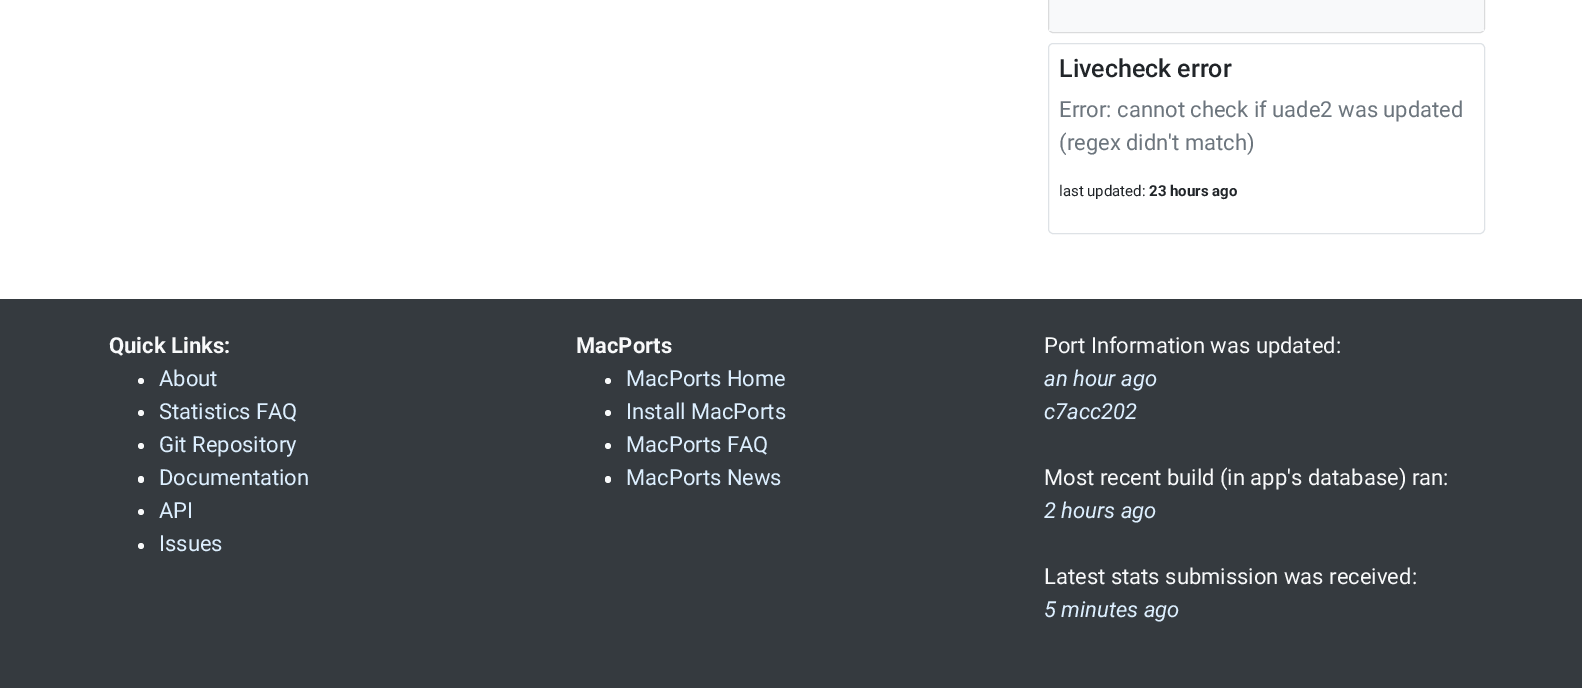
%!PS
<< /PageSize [1582 688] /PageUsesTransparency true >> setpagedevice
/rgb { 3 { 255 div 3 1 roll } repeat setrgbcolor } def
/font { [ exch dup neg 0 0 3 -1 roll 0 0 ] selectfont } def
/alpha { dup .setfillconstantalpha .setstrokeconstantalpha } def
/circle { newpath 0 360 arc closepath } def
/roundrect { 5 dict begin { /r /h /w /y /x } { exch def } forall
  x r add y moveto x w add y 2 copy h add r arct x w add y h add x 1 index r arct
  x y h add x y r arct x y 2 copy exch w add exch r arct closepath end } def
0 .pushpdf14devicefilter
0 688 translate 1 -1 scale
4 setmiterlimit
255 255 255 rgb
0 0 1582 688 rectfill
248 249 250 rgb
1048 -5 437 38 5 roundrect fill
0.12 alpha
0 0 0 rgb
1048.5 -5.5 436 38 4.5 roundrect stroke
1 alpha
248 249 250 rgb
1049 29 435 2 rectfill
222 226 230 rgb
1048.5 43.5 436 190 4.5 roundrect stroke
53 58 63 rgb
0 299 1582 389 rectfill
248 249 250 rgb
141 381 3 circle fill
141 413 3 circle fill
141 446 3 circle fill
138 476 6 7 3 roundrect fill
141 512 3 circle fill
141 546 3 circle fill
608 381 3 circle fill
608 413 3 circle fill
608 446 3 circle fill
605 476 6 7 3 roundrect fill
/Roboto-Medium 25 font
33 37 41 rgb
1059 77 moveto (Livecheck error) show
/Roboto-Regular 22 font
108 117 125 rgb
1059 117 moveto (Error: cannot check if uade2 was updated) show
1059 150 moveto (\(regex didn't match\)) show
/Roboto-Regular 15 font
33 37 41 rgb
1059 196 moveto (last updated:) show
/Roboto-Bold 15 font
1149 196 moveto (23 hours ago) show
/Roboto-Bold 22 font
248 249 250 rgb
109 353 moveto (Quick Links:) show
/Roboto-Regular 22 font
221 239 255 rgb
[
  [(About) 159 386]
  [(Statistics FAQ) 159 419]
  [(Git Repository) 159 452]
  [(Documentation) 159 485]
  [(API) 159 518]
  [(Issues) 159 551]
] { aload pop moveto show } forall
/Roboto-Bold 22 font
248 249 250 rgb
576 353 moveto (MacPorts) show
/Roboto-Regular 22 font
221 239 255 rgb
[
  [(MacPorts Home) 626 386]
  [(Install MacPorts) 626 419]
  [(MacPorts FAQ) 626 452]
  [(MacPorts News) 626 485]
] { aload pop moveto show } forall
248 249 250 rgb
1044 353 moveto (Port Information was updated:) show
/Roboto-Italic 22 font
221 239 255 rgb
1044 386 moveto (an hour ago) show
1044 419 moveto (c7acc202) show
/Roboto-Regular 22 font
248 249 250 rgb
1044 485 moveto (Most recent build \(in app's database\) ran:) show
/Roboto-Italic 22 font
221 239 255 rgb
1044 518 moveto (2 hours ago) show
/Roboto-Regular 22 font
248 249 250 rgb
1044 584 moveto (Latest stats submission was received:) show
/Roboto-Italic 22 font
221 239 255 rgb
1044 617 moveto (5 minutes ago) show
.poppdf14devicefilter showpage
